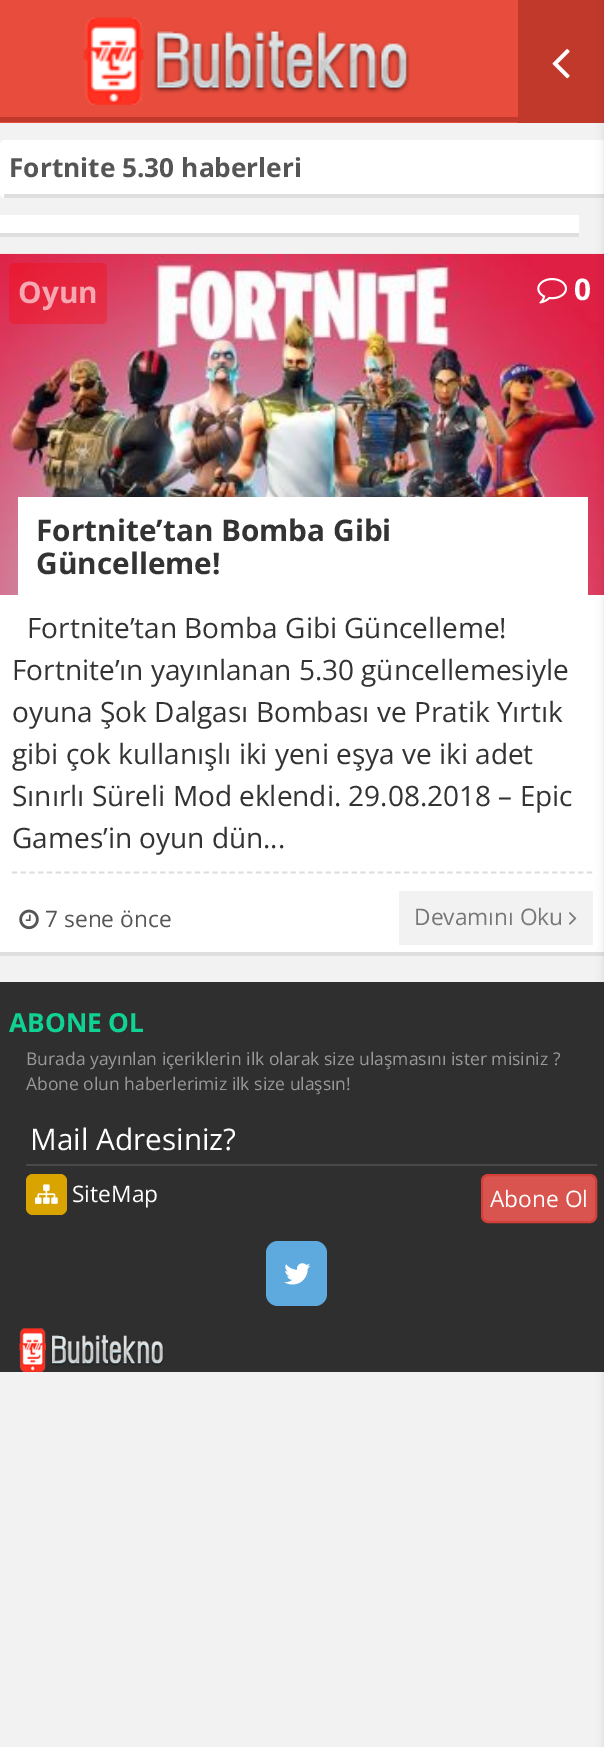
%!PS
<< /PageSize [604 1747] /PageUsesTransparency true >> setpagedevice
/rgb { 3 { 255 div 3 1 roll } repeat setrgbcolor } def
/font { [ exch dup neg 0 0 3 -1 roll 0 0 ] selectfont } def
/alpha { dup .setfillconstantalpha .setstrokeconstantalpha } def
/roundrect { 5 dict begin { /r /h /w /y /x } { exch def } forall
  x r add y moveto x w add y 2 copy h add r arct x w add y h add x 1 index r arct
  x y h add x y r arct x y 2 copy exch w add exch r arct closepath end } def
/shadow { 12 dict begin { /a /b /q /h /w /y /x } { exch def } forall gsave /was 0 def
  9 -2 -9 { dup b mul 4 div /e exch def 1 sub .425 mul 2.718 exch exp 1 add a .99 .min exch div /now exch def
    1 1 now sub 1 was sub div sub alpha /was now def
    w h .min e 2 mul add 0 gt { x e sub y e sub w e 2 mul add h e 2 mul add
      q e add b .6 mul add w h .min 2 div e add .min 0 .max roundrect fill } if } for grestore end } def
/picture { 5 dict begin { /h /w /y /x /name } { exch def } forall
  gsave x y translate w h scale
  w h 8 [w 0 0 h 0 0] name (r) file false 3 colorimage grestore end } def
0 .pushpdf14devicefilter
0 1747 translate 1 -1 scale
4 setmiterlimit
242 242 242 rgb
0 0 604 1747 rectfill
231 76 60 rgb
0 0 518 123 rectfill
192 57 43 rgb
0 117 518 5 rectfill
(img/1.rgb) 83 17 327 88 picture
518 0 86 123 rectfill
(img/2.rgb) 552 49 18 30 picture
255 255 255 rgb
0 140 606 58 5 roundrect fill
223 223 223 rgb
4 194 600 4 rectfill
(img/3.rgb) 0 253 604 342 picture
255 255 255 rgb
0 595 604 357 rectfill
223 223 223 rgb
0 952 604 4 rectfill
221 221 221 rgb
1.8 setlinewidth
[5.25 3.46] 0 setdash
12 872.5 moveto 593 872.5 lineto stroke
[
  [399 891 194 54 242 242 242]
  [0 982 604 390 47 47 47]
  [26 1164 571 2 73 73 73]
] { aload pop rgb rectfill } forall
217 83 79 rgb
482 1175 114 47 6 roundrect gsave fill grestore
212 63 58 rgb
2 setlinewidth
[] 0 setdash
stroke
0 0 0 rgb
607 2 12 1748 0 5 0.2 shadow
255 255 255 rgb
0 215 579 18 rectfill
223 223 223 rgb
0 233 579 4 rectfill
0.3 alpha
255 0 0 rgb
9 263 98 61 5 roundrect fill
1 alpha
(img/4.rgb) 537 278 30 26 picture
255 255 255 rgb
18 497 570 98 rectfill
(img/5.rgb) 19 909 20 21 picture
(img/6.rgb) 569 912 8 13 picture
217 163 0 rgb
26 1174 41 41 7 roundrect fill
(img/7.rgb) 35 1184 23 20 picture
94 169 221 rgb
266 1241 61 65 12 roundrect fill
(img/8.rgb) 284 1263 27 22 picture
(img/9.rgb) 19 1328 145 44 picture
/OpenSans-Bold 26.25 font
85 85 85 rgb
9 177 moveto (Fortnite 5.30 haberleri) show
/OpenSans-Bold 29.75 font
245 168 178 rgb
18 303 moveto (Oyun) show
255 255 255 rgb
574 300 moveto (0) show
51 51 51 rgb
36 541 moveto (Fortnite’tan Bomba Gibi) show
36 574 moveto (Güncelleme!) show
/OpenSans-Regular 28 font
[
  [(Fortnite’tan Bomba Gibi Güncelleme!) 27 638]
  [(Fortnite’ın yayınlanan 5.30 güncellemesiyle) 12 680]
  [(oyuna Şok Dalgası Bombası ve Pratik Yırtık) 12 722]
  [(gibi çok kullanışlı iki yeni eşya ve iki adet) 12 764]
  [(Sınırlı Süreli Mod eklendi. 29.08.2018 – Epic) 12 806]
  [(Games’in oyun dün...) 12 848]
] { aload pop moveto show } forall
/OpenSans-Regular 22.75 font
85 85 85 rgb
45 927 moveto (7 sene önce) show
119 119 119 rgb
414 925 moveto (Devamını Oku) show
/OpenSans-Bold 26.25 font
15 210 147 rgb
9 1032 moveto (ABONE OL) show
/OpenSans-Regular 17.5 font
153 153 153 rgb
26 1065 moveto (Burada yayınlan içeriklerin ilk olarak size ulaşmasını ister misiniz ?) show
26 1090 moveto (Abone olun haberlerimiz ilk size ulaşsın!) show
/OpenSans-Regular 29.75 font
255 255 255 rgb
30 1150 moveto (Mail Adresiniz?) show
/OpenSans-Regular 22.75 font
72 1202 moveto (SiteMap) show
490 1207 moveto (Abone Ol) show
.poppdf14devicefilter showpage
